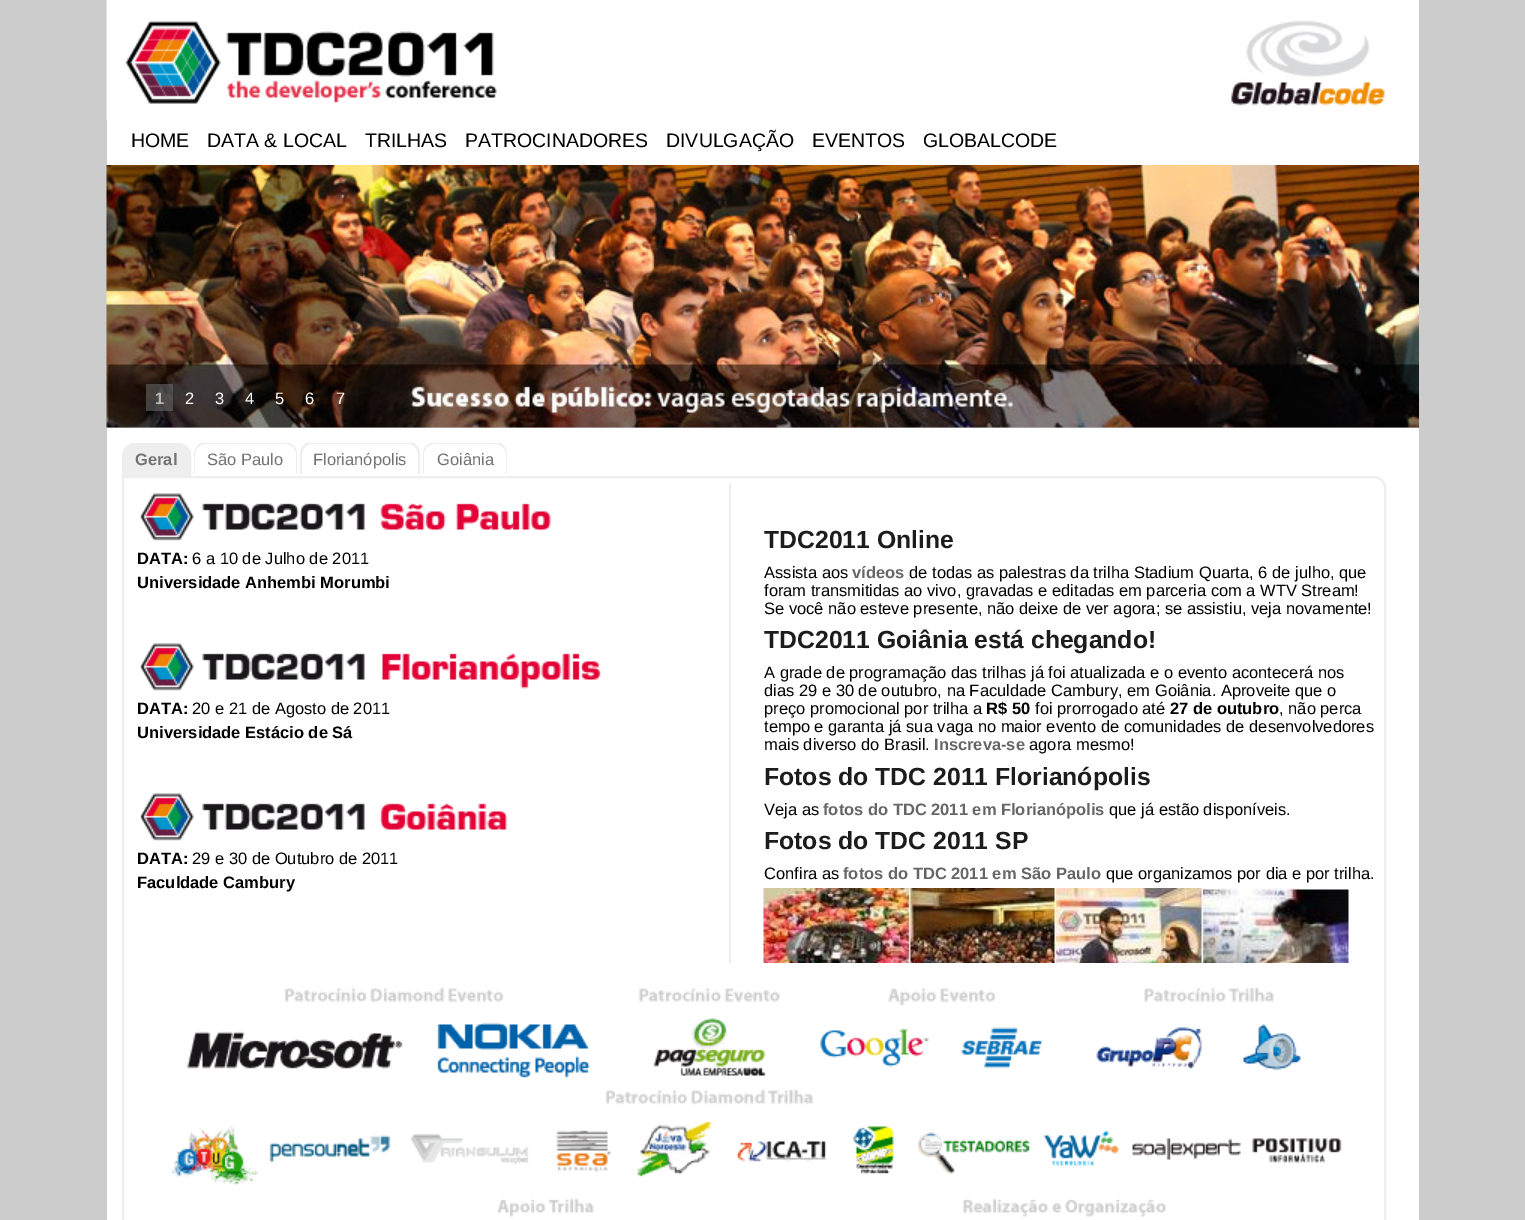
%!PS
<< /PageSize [1525 1220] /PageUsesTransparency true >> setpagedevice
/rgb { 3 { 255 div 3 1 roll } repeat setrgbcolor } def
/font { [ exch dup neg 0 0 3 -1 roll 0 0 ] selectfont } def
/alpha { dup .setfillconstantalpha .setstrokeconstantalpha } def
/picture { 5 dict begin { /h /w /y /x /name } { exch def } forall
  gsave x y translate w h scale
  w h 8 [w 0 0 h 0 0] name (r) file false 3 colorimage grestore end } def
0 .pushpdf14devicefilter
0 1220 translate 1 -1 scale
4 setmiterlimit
204 204 204 rgb
0 0 1525 1220 rectfill
(img/1.rgb) 106 0 1313 120 picture
255 255 255 rgb
107 120 1312 45 rectfill
(img/2.rgb) 106 165 1313 263 picture
0.6 alpha
102 102 102 rgb
146 384 27 27 rectfill
1 alpha
255 255 255 rgb
107 428 1312 792 rectfill
238 238 238 rgb
134 444 moveto 179 444 lineto 185 444 190 449 190 455 curveto 190 475 lineto 123 475 lineto 123 455 lineto 123 449 128 444 134 444 curveto closepath gsave fill grestore
2 setlinewidth
stroke
gsave
122 443 1279 33 rectclip
206 442 moveto 285 442 lineto 292 442 297 448 297 454 curveto 297 474 lineto 194 474 lineto 194 454 lineto 194 448 199 442 206 442 curveto closepath 206 444 moveto 285 444 lineto 291 444 296 449 296 454 curveto 296 474 lineto 195 474 lineto 195 454 lineto 195 449 200 444 206 444 curveto closepath eofill
312 442 moveto 408 442 lineto 415 442 420 448 420 454 curveto 420 474 lineto 300 474 lineto 300 454 lineto 300 448 305 442 312 442 curveto closepath 312 444 moveto 408 444 lineto 414 444 418 449 418 454 curveto 418 474 lineto 302 474 lineto 302 454 lineto 302 449 306 444 312 444 curveto closepath eofill
435 442 moveto 495 442 lineto 502 442 507 448 507 454 curveto 507 474 lineto 423 474 lineto 423 454 lineto 423 448 428 442 435 442 curveto closepath 435 444 moveto 495 444 lineto 501 444 506 449 506 454 curveto 506 474 lineto 424 474 lineto 424 454 lineto 424 449 429 444 435 444 curveto closepath eofill
grestore
123 477 moveto 1374 477 lineto 1380 477 1385 482 1385 488 curveto 1385 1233 lineto 123 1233 lineto closepath stroke
(img/3.rgb) 140 493 411 48 picture
(img/4.rgb) 140 643 461 48 picture
(img/5.rgb) 140 793 368 48 picture
729 483 2 480 rectfill
(img/6.rgb) 763 888 586 75 picture
(img/7.rgb) 284 987 990 19 picture
(img/8.rgb) 187 1031 216 38 picture
(img/9.rgb) 437 1022 153 56 picture
(img/10.rgb) 653 1018 113 58 picture
(img/11.rgb) 820 1028 109 39 picture
(img/12.rgb) 961 1027 82 42 picture
(img/13.rgb) 1096 1027 106 42 picture
(img/14.rgb) 1242 1024 59 46 picture
(img/15.rgb) 605 1089 209 16 picture
(img/16.rgb) 172 1126 87 60 picture
(img/17.rgb) 269 1135 122 28 picture
(img/18.rgb) 410 1133 119 32 picture
(img/19.rgb) 556 1129 55 43 picture
(img/20.rgb) 637 1121 76 56 picture
(img/21.rgb) 736 1140 91 22 picture
(img/22.rgb) 853 1126 42 48 picture
(img/23.rgb) 917 1132 113 42 picture
(img/24.rgb) 1043 1130 77 36 picture
(img/25.rgb) 1132 1138 109 22 picture
(img/26.rgb) 1252 1138 90 25 picture
(img/27.rgb) 497 1198 669 19 picture
/LiberationSans-Regular 19.5 font
0 0 0 rgb
[
  [(HOME) 131 147]
  [(DATA & LOCAL) 207 147]
  [(TRILHAS) 365 147]
  [(PATROCINADORES) 465 147]
  [(DIVULGAÇÃO) 666 147]
  [(EVENTOS) 812 147]
  [(GLOBALCODE) 923 147]
] { aload pop moveto show } forall
/LiberationSans-Bold 16.5 font
183 181 181 rgb
155 404 moveto (1) show
/LiberationSans-Regular 16.5 font
255 255 255 rgb
[
  [(2) 185 404]
  [(3) 215 404]
  [(4) 245 404]
  [(5) 275 404]
  [(6) 305 404]
  [(7) 336 404]
] { aload pop moveto show } forall
/LiberationSans-Bold 16.5 font
114 114 114 rgb
135 465 moveto (Geral) show
/LiberationSans-Regular 16.5 font
[
  [(São Paulo) 207 465]
  [(Florianópolis) 313 465]
  [(Goiânia) 437 465]
] { aload pop moveto show } forall
/LiberationSans-Bold 16.5 font
0 0 0 rgb
137 564 moveto (DATA:) show
/LiberationSans-Regular 16.5 font
192 564 moveto (6 a 10 de Julho de 2011) show
/LiberationSans-Bold 16.5 font
137 588 moveto (Universidade Anhembi Morumbi) show
137 714 moveto (DATA:) show
/LiberationSans-Regular 16.5 font
192 714 moveto (20 e 21 de Agosto de 2011) show
/LiberationSans-Bold 16.5 font
137 738 moveto (Universidade Estácio de Sá) show
137 864 moveto (DATA:) show
/LiberationSans-Regular 16.5 font
192 864 moveto (29 e 30 de Outubro de 2011) show
/LiberationSans-Bold 16.5 font
137 888 moveto (Faculdade Cambury) show
/LiberationSans-Bold 24.75 font
28 28 28 rgb
764 548 moveto (TDC2011 Online) show
/LiberationSans-Regular 16.5 font
0 0 0 rgb
764 578 moveto (Assista aos) show
/LiberationSans-Bold 16.5 font
102 102 102 rgb
852 578 moveto (vídeos) show
/LiberationSans-Regular 16.5 font
0 0 0 rgb
[
  [(de todas as palestras da trilha Stadium Quarta, 6 de julho, que) 909 578]
  [(foram transmitidas ao vivo, gravadas e editadas em parceria com a WTV Stream!) 764 596]
  [(Se você não esteve presente, não deixe de ver agora; se assistiu, veja novamente!) 764 614]
] { aload pop moveto show } forall
/LiberationSans-Bold 24.75 font
28 28 28 rgb
764 648 moveto (TDC2011 Goiânia está chegando!) show
/LiberationSans-Regular 16.5 font
0 0 0 rgb
[
  [(A grade de programação das trilhas já foi atualizada e o evento acontecerá nos) 764 678]
  [(dias 29 e 30 de outubro, na Faculdade Cambury, em Goiânia. Aproveite que o) 764 696]
  [(preço promocional por trilha a) 764 714]
] { aload pop moveto show } forall
/LiberationSans-Bold 16.5 font
986 714 moveto (R$ 50) show
/LiberationSans-Regular 16.5 font
1035 714 moveto (foi prorrogado até) show
/LiberationSans-Bold 16.5 font
1170 714 moveto (27 de outubro) show
/LiberationSans-Regular 16.5 font
[
  [(, não perca) 1279 714]
  [(tempo e garanta já sua vaga no maior evento de comunidades de desenvolvedores) 764 732]
  [(mais diverso do Brasil.) 764 750]
] { aload pop moveto show } forall
/LiberationSans-Bold 16.5 font
102 102 102 rgb
934 750 moveto (Inscreva-se) show
/LiberationSans-Regular 16.5 font
0 0 0 rgb
1029 750 moveto (agora mesmo!) show
/LiberationSans-Bold 24.75 font
28 28 28 rgb
764 785 moveto (Fotos do TDC 2011 Florianópolis) show
/LiberationSans-Regular 16.5 font
0 0 0 rgb
764 815 moveto (Veja as) show
/LiberationSans-Bold 16.5 font
102 102 102 rgb
823 815 moveto (fotos do TDC 2011 em Florianópolis) show
/LiberationSans-Regular 16.5 font
0 0 0 rgb
1109 815 moveto (que já estão disponíveis.) show
/LiberationSans-Bold 24.75 font
28 28 28 rgb
764 849 moveto (Fotos do TDC 2011 SP) show
/LiberationSans-Regular 16.5 font
0 0 0 rgb
764 879 moveto (Confira as) show
/LiberationSans-Bold 16.5 font
102 102 102 rgb
843 879 moveto (fotos do TDC 2011 em São Paulo) show
/LiberationSans-Regular 16.5 font
0 0 0 rgb
1106 879 moveto (que organizamos por dia e por trilha.) show
.poppdf14devicefilter showpage
